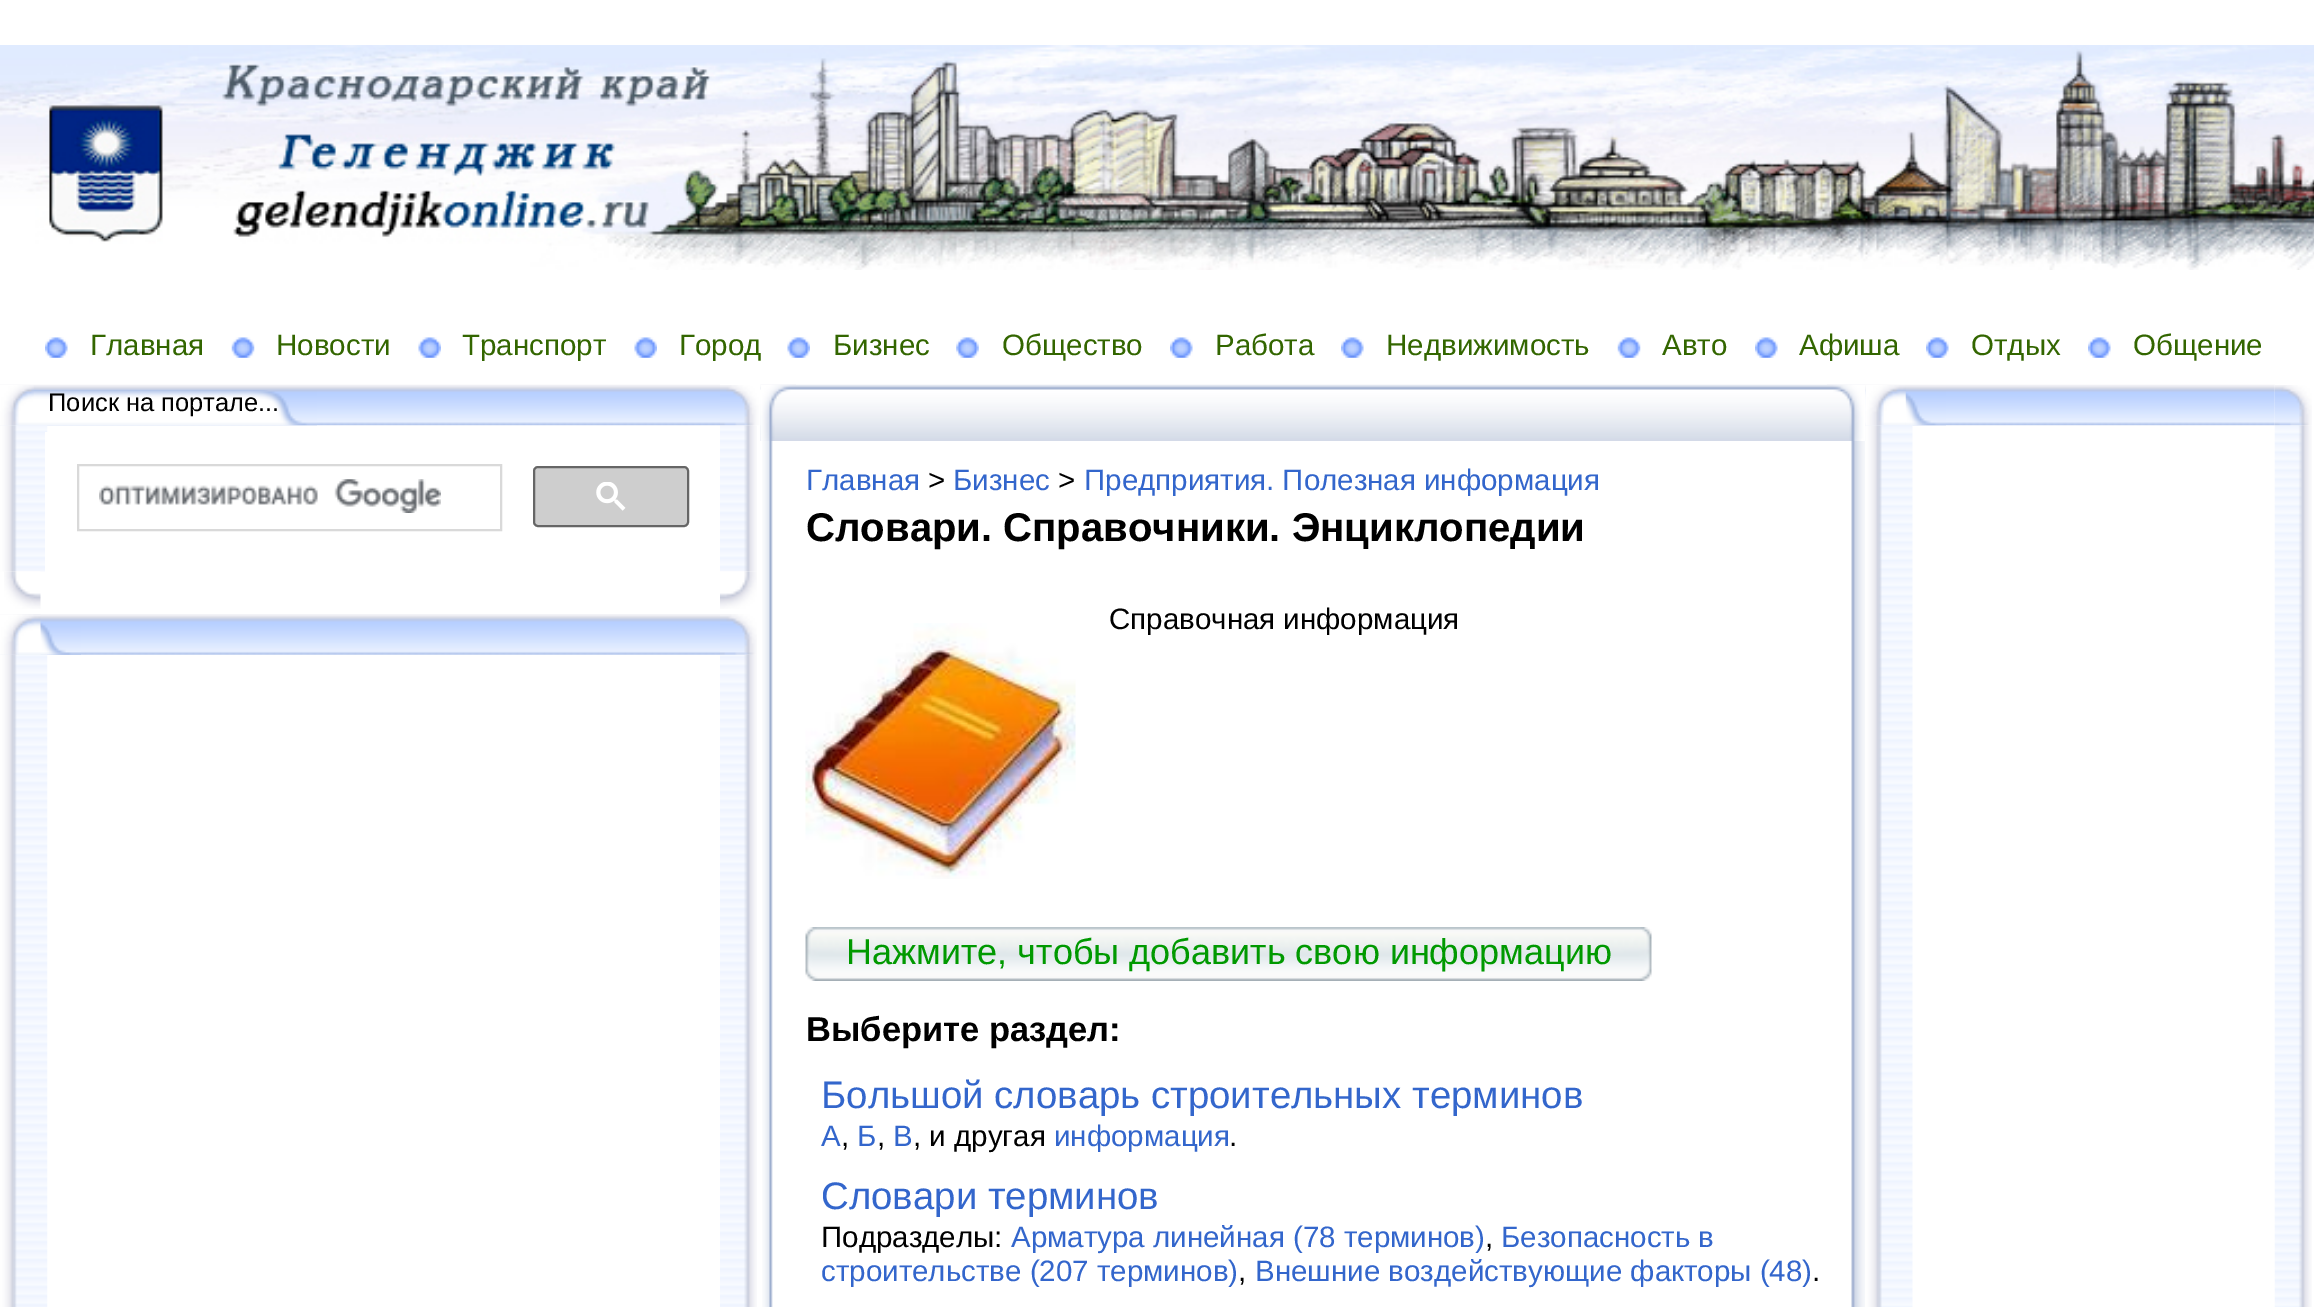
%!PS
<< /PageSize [2314 1307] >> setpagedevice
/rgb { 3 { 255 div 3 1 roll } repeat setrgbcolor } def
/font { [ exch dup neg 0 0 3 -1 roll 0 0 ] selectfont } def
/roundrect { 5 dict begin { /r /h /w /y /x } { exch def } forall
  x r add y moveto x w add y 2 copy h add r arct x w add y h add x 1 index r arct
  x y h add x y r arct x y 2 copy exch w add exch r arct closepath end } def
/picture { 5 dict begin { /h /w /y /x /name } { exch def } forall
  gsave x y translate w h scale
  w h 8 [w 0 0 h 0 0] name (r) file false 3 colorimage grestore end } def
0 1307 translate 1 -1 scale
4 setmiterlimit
255 255 255 rgb
0 0 2314 1307 rectfill
(img/1.rgb) 0 45 2314 225 picture
(img/2.rgb) 45 337 23 21 picture
(img/3.rgb) 231 337 24 21 picture
(img/4.rgb) 418 337 23 21 picture
(img/5.rgb) 634 337 23 21 picture
(img/5.rgb) 787 337 23 21 picture
(img/6.rgb) 956 337 23 21 picture
(img/7.rgb) 1170 337 23 21 picture
(img/2.rgb) 1341 337 23 21 picture
(img/8.rgb) 1617 337 24 21 picture
(img/2.rgb) 1755 337 23 21 picture
(img/7.rgb) 1926 337 23 21 picture
(img/7.rgb) 2088 337 23 21 picture
(img/9.rgb) 0 384 720 42 picture
(img/10.rgb) 0 390 317 36 picture
(img/11.rgb) 0 385 34 40 picture
(img/16.rgb) 720 425 37 147 picture
(img/31.rgb) 760 384 1106 57 picture
(img/12.rgb) 720 385 41 41 picture
(img/13.rgb) 0 425 48 147 picture
45 432 3 140 rectfill
217 217 217 rgb
2 setlinewidth
78 465 423 65 rectstroke
(img/14.rgb) 99 479 342 34 picture
206 206 206 rgb
534 467 154 59 4 roundrect gsave fill grestore
102 102 102 rgb
stroke
(img/15.rgb) 596 482 30 29 picture
(img/17.rgb) 4 571 37 38 picture
(img/18.rgb) 720 571 37 38 picture
(img/19.rgb) 0 614 720 41 picture
(img/20.rgb) 0 619 81 36 picture
(img/23.rgb) 0 654 48 653 picture
(img/21.rgb) 0 614 41 41 picture
(img/24.rgb) 720 654 37 653 picture
(img/22.rgb) 720 614 37 41 picture
(img/32.rgb) 1827 384 39 57 picture
(img/25.rgb) 1865 384 410 42 picture
(img/26.rgb) 1865 386 81 40 picture
(img/27.rgb) 1865 385 41 40 picture
(img/30.rgb) 2274 425 38 882 picture
(img/28.rgb) 2274 385 38 41 picture
(img/29.rgb) 1865 425 48 882 picture
(img/33.rgb) 760 384 36 57 picture
(img/34.rgb) 762 441 11 866 picture
(img/35.rgb) 1851 441 14 866 picture
(img/36.rgb) 805 623 271 256 picture
(img/37.rgb) 1611 927 41 54 picture
(img/38.rgb) 805 927 806 54 picture
/LiberationSans-Regular 29.5 font
51 102 0 rgb
[
  [(Главная) 90 355]
  [(Новости) 276 355]
  [(Транспорт) 462 355]
  [(Город) 679 355]
  [(Бизнес) 833 355]
  [(Общество) 1002 355]
  [(Работа) 1215 355]
  [(Недвижимость) 1386 355]
  [(Авто) 1662 355]
  [(Афиша) 1799 355]
  [(Отдых) 1971 355]
  [(Общение) 2133 355]
] { aload pop moveto show } forall
/LiberationSans-Regular 25.5 font
0 0 0 rgb
48 411 moveto (Поиск на портале...) show
/LiberationSans-Regular 29.5 font
51 102 204 rgb
806 490 moveto (Главная) show
0 0 0 rgb
928 490 moveto (>) show
51 102 204 rgb
953 490 moveto (Бизнес) show
0 0 0 rgb
1058 490 moveto (>) show
51 102 204 rgb
1084 490 moveto (Предприятия. Полезная информация) show
/LiberationSans-Bold 40.1 font
0 0 0 rgb
806 541 moveto (Словари. Справочники. Энциклопедии) show
/LiberationSans-Regular 29.5 font
1109 629 moveto (Справочная информация) show
/LiberationSans-Regular 36 font
0 153 0 rgb
846 964 moveto (Нажмите, чтобы добавить свою информацию) show
/LiberationSans-Bold 34.5 font
0 0 0 rgb
806 1041 moveto (Выберите раздел:) show
/LiberationSans-Regular 38.4 font
51 102 204 rgb
821 1108 moveto (Большой словарь строительных терминов) show
/LiberationSans-Regular 29.5 font
821 1146 moveto (А) show
0 0 0 rgb
841 1146 moveto (,) show
51 102 204 rgb
857 1146 moveto (Б) show
0 0 0 rgb
877 1146 moveto (,) show
51 102 204 rgb
893 1146 moveto (В) show
0 0 0 rgb
913 1146 moveto (, и другая) show
51 102 204 rgb
1054 1146 moveto (информация) show
0 0 0 rgb
1229 1146 moveto (.) show
/LiberationSans-Regular 38.4 font
51 102 204 rgb
821 1209 moveto (Словари терминов) show
/LiberationSans-Regular 29.5 font
0 0 0 rgb
821 1247 moveto (Подразделы:) show
51 102 204 rgb
1011 1247 moveto (Арматура линейная \(78 терминов\)) show
0 0 0 rgb
1485 1247 moveto (,) show
51 102 204 rgb
1501 1247 moveto (Безопасность в) show
821 1281 moveto (строительстве \(207 терминов\)) show
0 0 0 rgb
1238 1281 moveto (,) show
51 102 204 rgb
1255 1281 moveto (Внешние воздействующие факторы \(48\)) show
0 0 0 rgb
1812 1281 moveto (.) show
showpage
